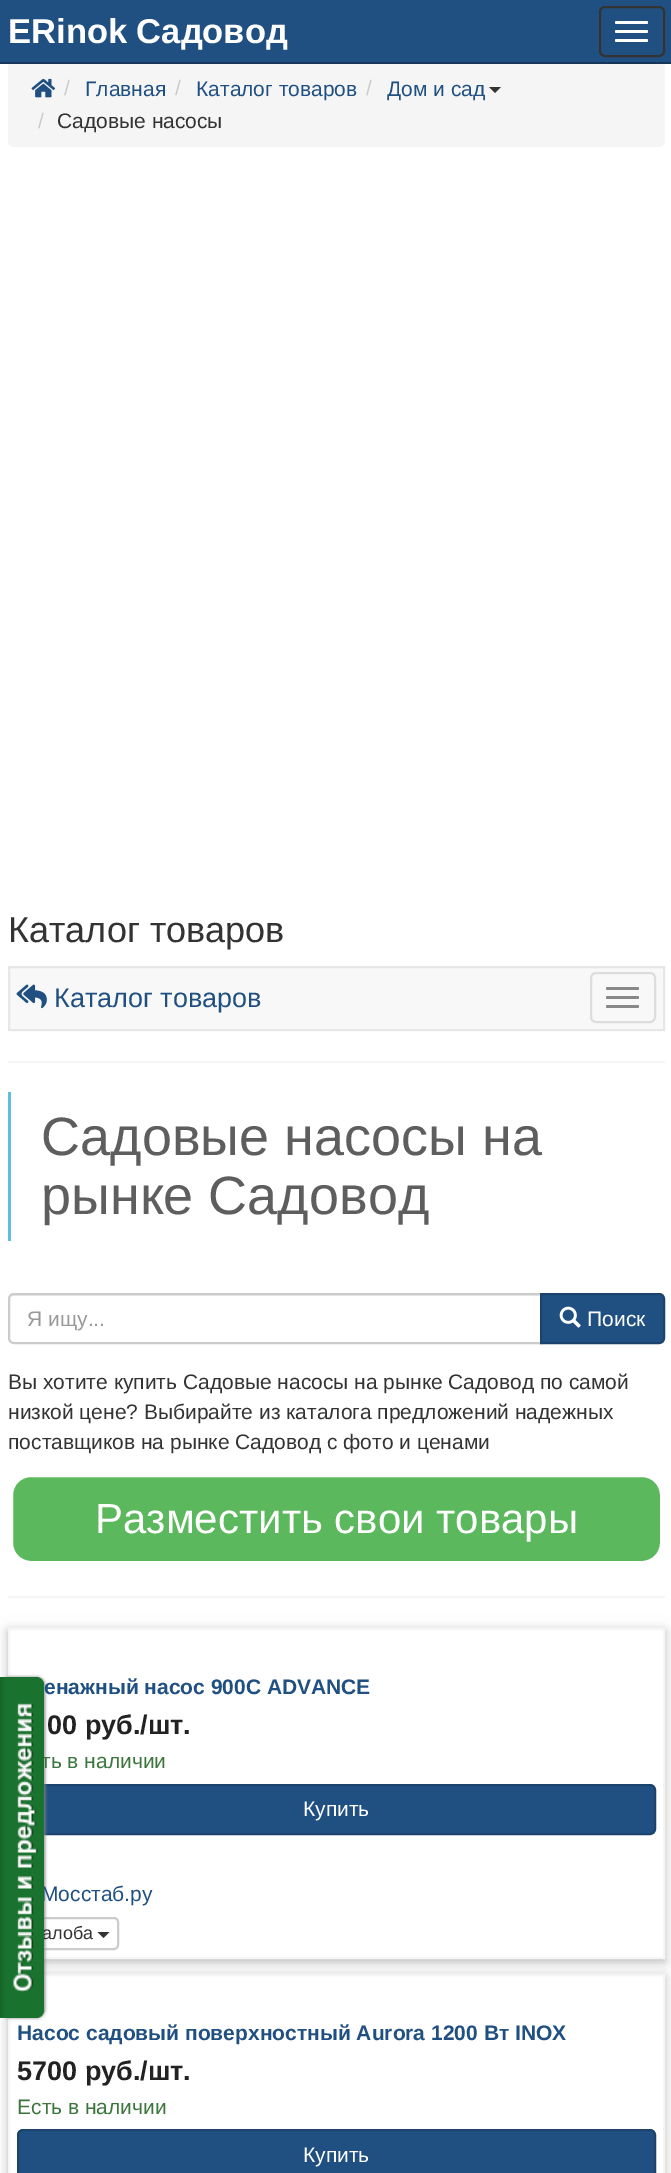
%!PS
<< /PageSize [671 2173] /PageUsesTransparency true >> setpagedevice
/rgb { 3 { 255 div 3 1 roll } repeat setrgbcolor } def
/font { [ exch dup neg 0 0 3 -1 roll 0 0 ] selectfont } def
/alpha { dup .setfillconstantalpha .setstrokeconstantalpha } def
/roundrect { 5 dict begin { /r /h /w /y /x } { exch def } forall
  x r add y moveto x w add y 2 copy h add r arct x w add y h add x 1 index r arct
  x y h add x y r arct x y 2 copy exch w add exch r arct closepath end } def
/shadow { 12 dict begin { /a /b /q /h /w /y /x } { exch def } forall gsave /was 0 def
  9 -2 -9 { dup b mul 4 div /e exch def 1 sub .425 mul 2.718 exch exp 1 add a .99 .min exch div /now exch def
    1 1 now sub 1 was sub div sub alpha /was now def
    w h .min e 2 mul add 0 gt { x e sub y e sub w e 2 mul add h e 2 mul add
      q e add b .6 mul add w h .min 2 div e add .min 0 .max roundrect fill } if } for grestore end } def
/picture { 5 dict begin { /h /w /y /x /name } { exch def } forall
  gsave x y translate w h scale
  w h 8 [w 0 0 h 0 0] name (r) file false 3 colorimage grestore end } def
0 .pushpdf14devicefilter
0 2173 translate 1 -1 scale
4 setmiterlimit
255 255 255 rgb
0 0 671 2173 rectfill
245 245 245 rgb
8 60 657 87 6 roundrect fill
32 80 129 rgb
0 0 671 62 rectfill
22 55 88 rgb
0 62 671 2 rectfill
51 51 51 rgb
2 setlinewidth
600 7 64 49 5 roundrect stroke
255 255 255 rgb
615 21 33 3 1.5 roundrect fill
615 30 33 3 1.5 roundrect fill
615 39 33 3 1.5 roundrect fill
(img/1.rgb) 31 78 25 20 picture
51 51 51 rgb
489 87 moveto 501 87 lineto 495 93 lineto closepath fill
248 248 248 rgb
9 967 moveto 664 967 lineto 664 1030 lineto 9 1030 lineto closepath gsave fill grestore
231 231 231 rgb
stroke
(img/2.rgb) 16 984 31 25 picture
221 221 221 rgb
591 973 64 49 5 roundrect stroke
136 136 136 rgb
606 987 33 3 1.5 roundrect fill
606 996 33 3 1.5 roundrect fill
606 1005 33 3 1.5 roundrect fill
245 245 245 rgb
8 1061 657 2 rectfill
91 192 222 rgb
8 1092 3 149 rectfill
236 236 236 rgb
14 1296 moveto 540 1296 lineto 540 1295 lineto 14 1295 lineto 11 1295 9 1297 9 1300 curveto 9 1298 11 1296 14 1296 curveto closepath fill
204 204 204 rgb
14 1294 moveto 541 1294 lineto 541 1343 lineto 14 1343 lineto 11 1343 9 1341 9 1338 curveto 9 1299 lineto 9 1296 11 1294 14 1294 curveto closepath stroke
32 80 129 rgb
541 1294 moveto 659 1294 lineto 662 1294 664 1296 664 1299 curveto 664 1338 lineto 664 1341 662 1343 659 1343 curveto 541 1343 lineto closepath gsave fill grestore
27 67 109 rgb
stroke
(img/3.rgb) 559 1306 22 22 picture
92 184 92 rgb
10.5 1474.5 652 89 20.5 roundrect gsave fill grestore
255 255 255 rgb
5 setlinewidth
stroke
245 245 245 rgb
8 1596 657 2 rectfill
0 0 0 rgb
8 1631 657 331 0 7.5 0.12 shadow
8 1631 657 331 0 4 0.16 shadow
255 255 255 rgb
9 1629 moveto 664 1629 lineto 664 1958 lineto 9 1958 lineto closepath gsave fill grestore
245 245 245 rgb
2 setlinewidth
stroke
32 80 129 rgb
18 1785 637 49 5 roundrect gsave fill grestore
27 67 109 rgb
stroke
204 204 204 rgb
18 1918 100 31 4 roundrect stroke
51 51 51 rgb
97.5 1932 moveto 109.5 1932 lineto 103.5 1938 lineto closepath fill
0 0 0 rgb
8 1977 657 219 0 7.5 0.12 shadow
8 1977 657 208 0 4 0.16 shadow
255 255 255 rgb
9 1975 moveto 664 1975 lineto 664 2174 lineto 9 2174 lineto closepath gsave fill grestore
245 245 245 rgb
stroke
32 80 129 rgb
18 2130 637 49 5 roundrect gsave fill grestore
27 67 109 rgb
stroke
136 136 136 rgb
2 1677 43 341 8 1.5 1 shadow
/LiberationSans-Bold 34.5 font
255 255 255 rgb
8 43 moveto (ERinok Садовод) show
/LiberationSans-Regular 21 font
204 204 204 rgb
64 95 moveto (/) show
32 80 129 rgb
85 96 moveto (Главная) show
204 204 204 rgb
175 95 moveto (/) show
32 80 129 rgb
196 96 moveto (Каталог товаров) show
204 204 204 rgb
366 95 moveto (/) show
32 80 129 rgb
387 96 moveto (Дом и сад) show
204 204 204 rgb
38 128 moveto (/) show
51 51 51 rgb
57 128 moveto (Садовые насосы) show
/LiberationSans-Regular 36 font
8 942 moveto (Каталог товаров) show
/LiberationSans-Regular 27 font
32 80 129 rgb
54 1007 moveto (Каталог товаров) show
/LiberationSans-Regular 54 font
94 94 94 rgb
41 1155 moveto (Садовые насосы на) show
41 1214 moveto (рынке Садовод) show
/LiberationSans-Regular 21 font
153 153 153 rgb
27 1326 moveto (Я ищу...) show
255 255 255 rgb
587 1326 moveto (Поиск) show
51 51 51 rgb
[
  [(Вы хотите купить Садовые насосы на рынке Садовод по самой) 8 1389]
  [(низкой цене? Выбирайте из каталога предложений надежных) 8 1419]
  [(поставщиков на рынке Садовод с фото и ценами) 8 1449]
] { aload pop moveto show } forall
/LiberationSans-Regular 42 font
255 255 255 rgb
95 1533 moveto (Разместить свои товары) show
/LiberationSans-Bold 21 font
32 80 129 rgb
44 1694 moveto (енажный насос 900С ADVANCE) show
/LiberationSans-Bold 27 font
34 34 34 rgb
47 1734 moveto (00 руб./шт.) show
/LiberationSans-Regular 21 font
60 118 61 rgb
41 1768 moveto (ть в наличии) show
255 255 255 rgb
303 1816 moveto (Купить) show
32 80 129 rgb
41 1901 moveto (Мосстаб.ру) show
/LiberationSans-Regular 18 font
51 51 51 rgb
42 1939 moveto (алоба) show
/LiberationSans-Bold 21 font
32 80 129 rgb
17 2040 moveto (Насос садовый поверхностный Aurora 1200 Вт INOX) show
/LiberationSans-Bold 27 font
34 34 34 rgb
17 2080 moveto (5700 руб./шт.) show
/LiberationSans-Regular 21 font
60 118 61 rgb
17 2114 moveto (Есть в наличии) show
255 255 255 rgb
303 2162 moveto (Купить) show
25 115 46 rgb
0 1677 moveto 36 1677 lineto 40.5 1677 44 1680.5 44 1685 curveto 44 2010 lineto 44 2014.5 40.5 2018 36 2018 curveto 0 2018 lineto closepath fill
(img/4.rgb) 0 1677 5 340 picture
(img/5.rgb) 13 1703 25 290 picture
.poppdf14devicefilter showpage
